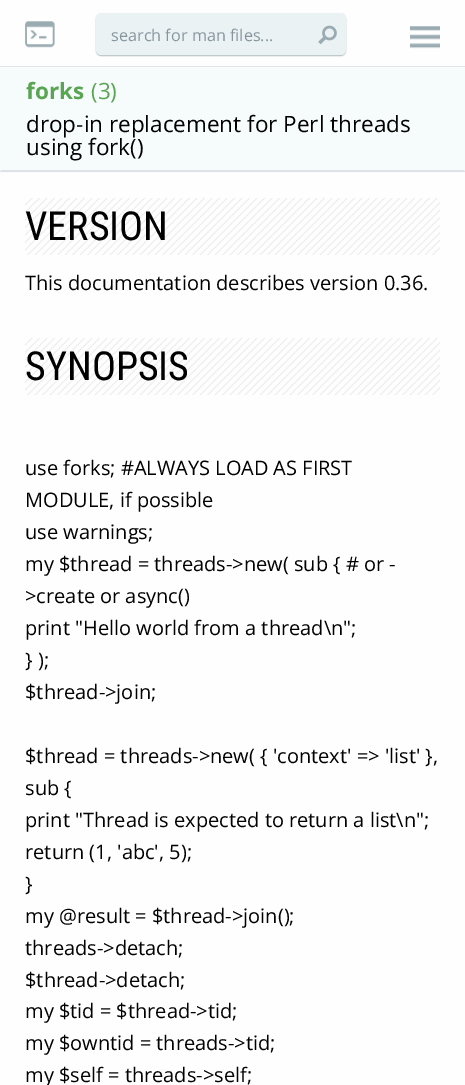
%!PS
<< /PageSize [465 1085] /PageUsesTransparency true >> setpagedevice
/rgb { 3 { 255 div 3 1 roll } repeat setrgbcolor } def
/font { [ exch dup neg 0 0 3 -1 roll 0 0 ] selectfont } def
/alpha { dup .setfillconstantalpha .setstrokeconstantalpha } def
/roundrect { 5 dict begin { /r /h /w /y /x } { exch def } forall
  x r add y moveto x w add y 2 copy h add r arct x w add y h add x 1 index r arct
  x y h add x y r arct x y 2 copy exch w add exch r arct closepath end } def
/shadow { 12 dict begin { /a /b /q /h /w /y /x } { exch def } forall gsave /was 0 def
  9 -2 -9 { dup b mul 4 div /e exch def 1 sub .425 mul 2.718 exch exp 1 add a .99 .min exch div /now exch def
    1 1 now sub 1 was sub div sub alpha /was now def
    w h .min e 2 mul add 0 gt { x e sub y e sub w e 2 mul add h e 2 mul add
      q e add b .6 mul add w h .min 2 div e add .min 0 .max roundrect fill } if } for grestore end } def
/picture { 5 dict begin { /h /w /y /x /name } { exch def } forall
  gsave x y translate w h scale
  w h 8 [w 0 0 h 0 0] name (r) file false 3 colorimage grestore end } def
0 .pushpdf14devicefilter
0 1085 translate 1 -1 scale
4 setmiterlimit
254 254 254 rgb
0 0 465 1085 rectfill
220 229 231 rgb
0 66 465 1 rectfill
(img/1.rgb) 25 21 30 27 picture
6 47 55 rgb
96 14 250 42 5 0.5 0.3 shadow
234 242 244 rgb
96 13 250 42 5 roundrect fill
(img/2.rgb) 318 25 19 20 picture
(img/3.rgb) 410 26 30 23 picture
246 251 252 rgb
0 68 465 105 rectfill
223 227 233 rgb
465 172 moveto 0 172 lineto 1 170 lineto 464 170 lineto closepath fill
(img/4.rgb) 25 198 415 57 picture
(img/4.rgb) 25 338 415 57 picture
/OpenSans-Regular 16.25 font
134 150 157 rgb
111 41 moveto (search for man files...) show
/OpenSans-Bold 22.5 font
89 165 82 rgb
26 99 moveto (forks) show
/OpenSans-Regular 22.5 font
91 99 moveto (\(3\)) show
0 0 0 rgb
26 132 moveto (drop-in replacement for Perl threads) show
26 155 moveto (using fork\(\)) show
/RobotoCondensed-Regular 40 font
25 240 moveto (VERSION) show
/OpenSans-Regular 20 font
25 290 moveto (This documentation describes version 0.36.) show
/RobotoCondensed-Regular 40 font
25 380 moveto (SYNOPSIS) show
/OpenSans-Regular 20 font
[
  [(use forks; #ALWAYS LOAD AS FIRST) 25 475]
  [(MODULE, if possible) 25 507]
  [(use warnings;) 25 539]
  [(my $thread = threads->new\( sub { # or -) 25 571]
  [(>create or async\(\)) 25 603]
  [(print "Hello world from a thread\\n";) 25 635]
  [(} \);) 25 667]
  [($thread->join;) 25 699]
  [($thread = threads->new\( { 'context' => 'list' },) 25 763]
  [(sub {) 25 795]
  [(print "Thread is expected to return a list\\n";) 25 827]
  [(return \(1, 'abc', 5\);) 25 859]
  [(}) 25 891]
  [(my @result = $thread->join\(\);) 25 923]
  [(threads->detach;) 25 955]
  [($thread->detach;) 25 987]
  [(my $tid = $thread->tid;) 25 1018]
  [(my $owntid = threads->tid;) 25 1050]
  [(my $self = threads->self;) 25 1082]
] { aload pop moveto show } forall
.poppdf14devicefilter showpage
